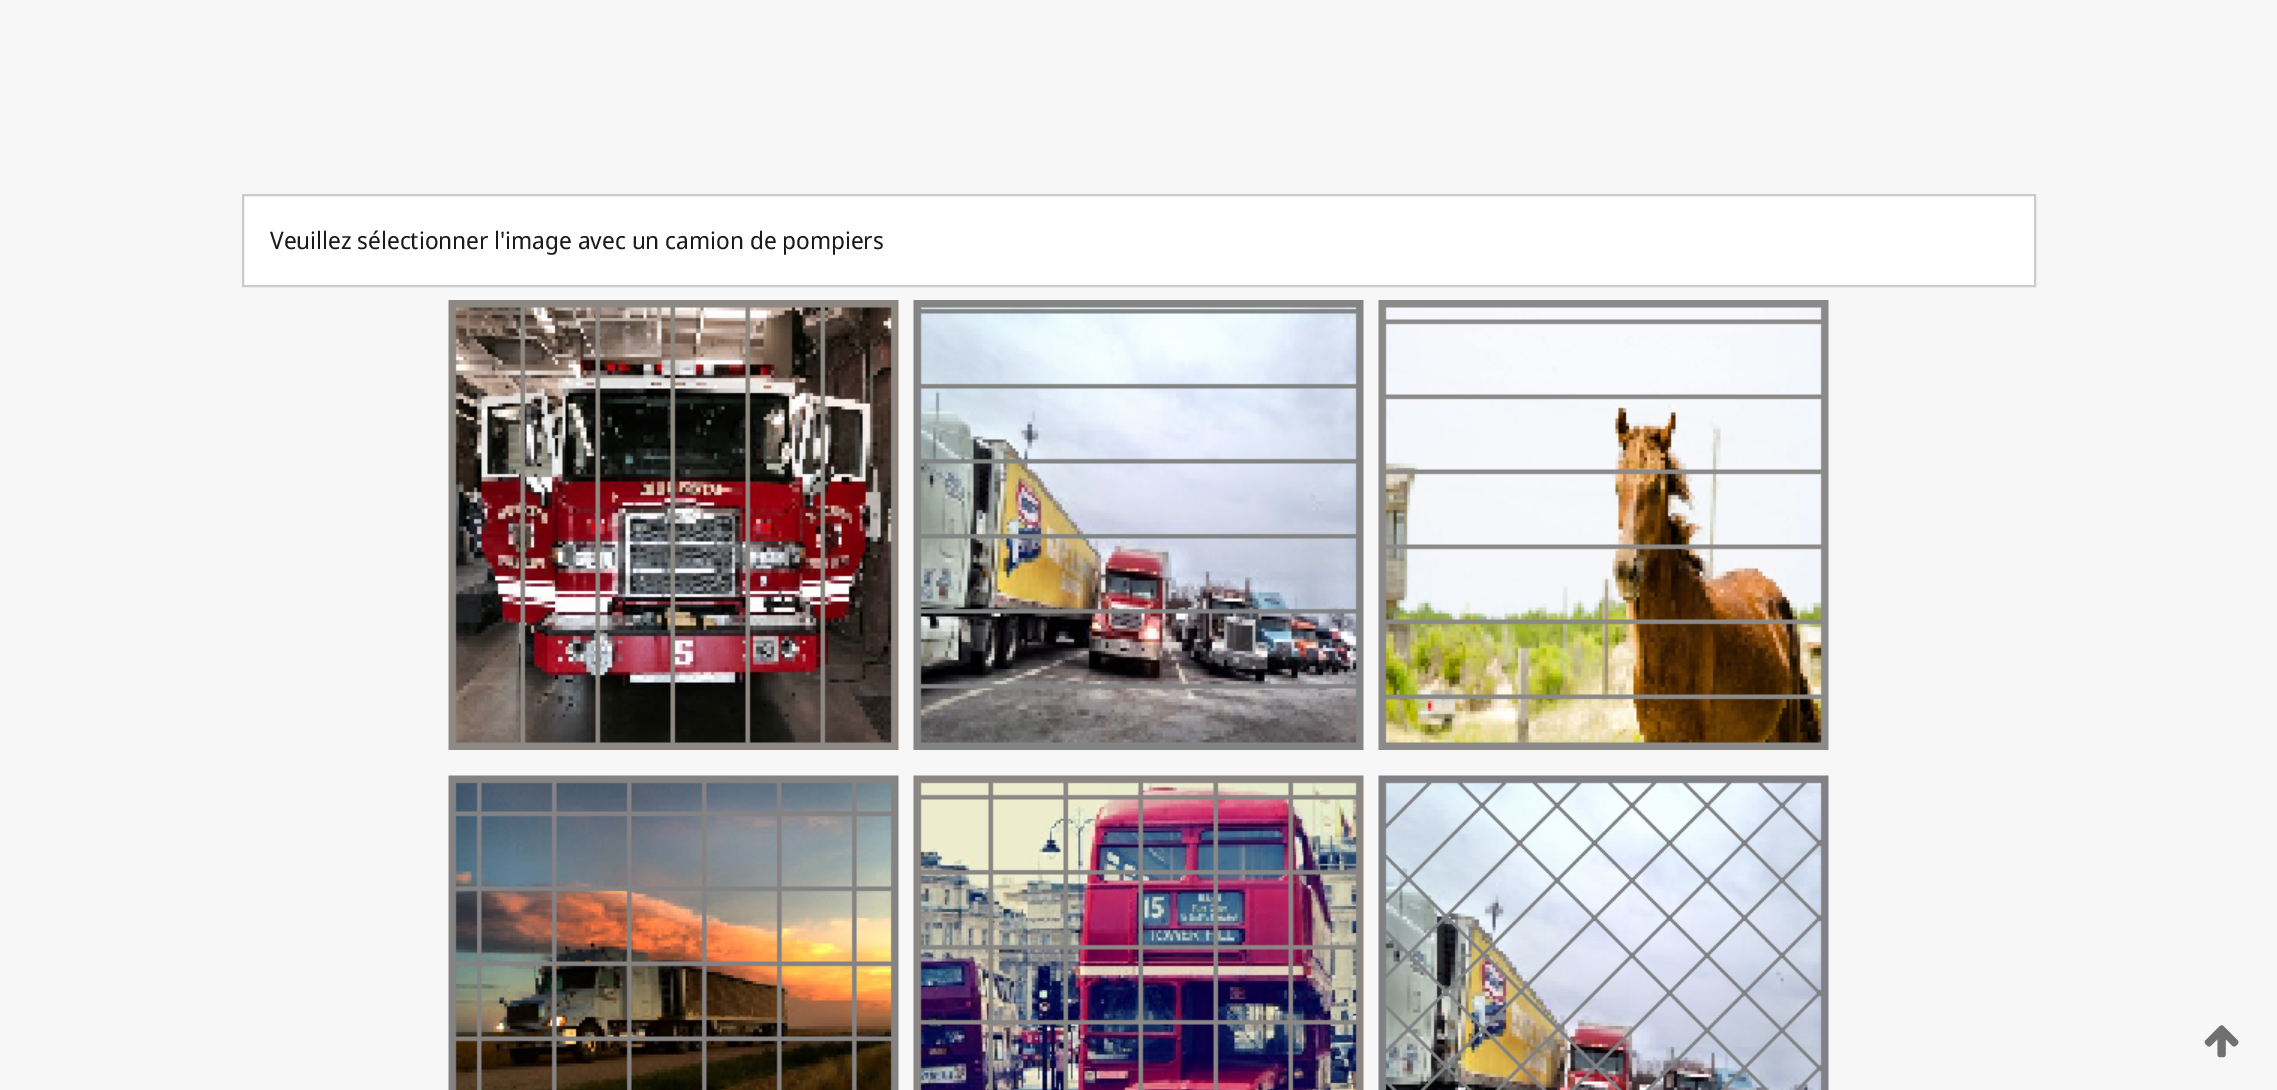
%!PS
<< /PageSize [2277 1090] >> setpagedevice
/rgb { 3 { 255 div 3 1 roll } repeat setrgbcolor } def
/font { [ exch dup neg 0 0 3 -1 roll 0 0 ] selectfont } def
/picture { 5 dict begin { /h /w /y /x /name } { exch def } forall
  gsave x y translate w h scale
  w h 8 [w 0 0 h 0 0] name (r) file false 3 colorimage grestore end } def
0 1090 translate 1 -1 scale
4 setmiterlimit
247 247 247 rgb
0 0 2277 1090 rectfill
255 255 255 rgb
243 195 moveto 2035 195 lineto 2035 286 lineto 243 286 lineto closepath gsave fill grestore
204 204 204 rgb
2 setlinewidth
stroke
(img/1.rgb) 448 300 451 450 picture
(img/2.rgb) 913 300 451 450 picture
(img/3.rgb) 1378 300 451 450 picture
(img/4.rgb) 448 775 451 315 picture
(img/5.rgb) 913 775 451 315 picture
(img/6.rgb) 1378 775 451 315 picture
(img/7.rgb) 2204 1025 35 33 picture
/NotoSansDisplay-Regular 24 font
26 26 26 rgb
270 249 moveto (Veuillez sélectionner l'image avec un camion de pompiers) show
showpage
